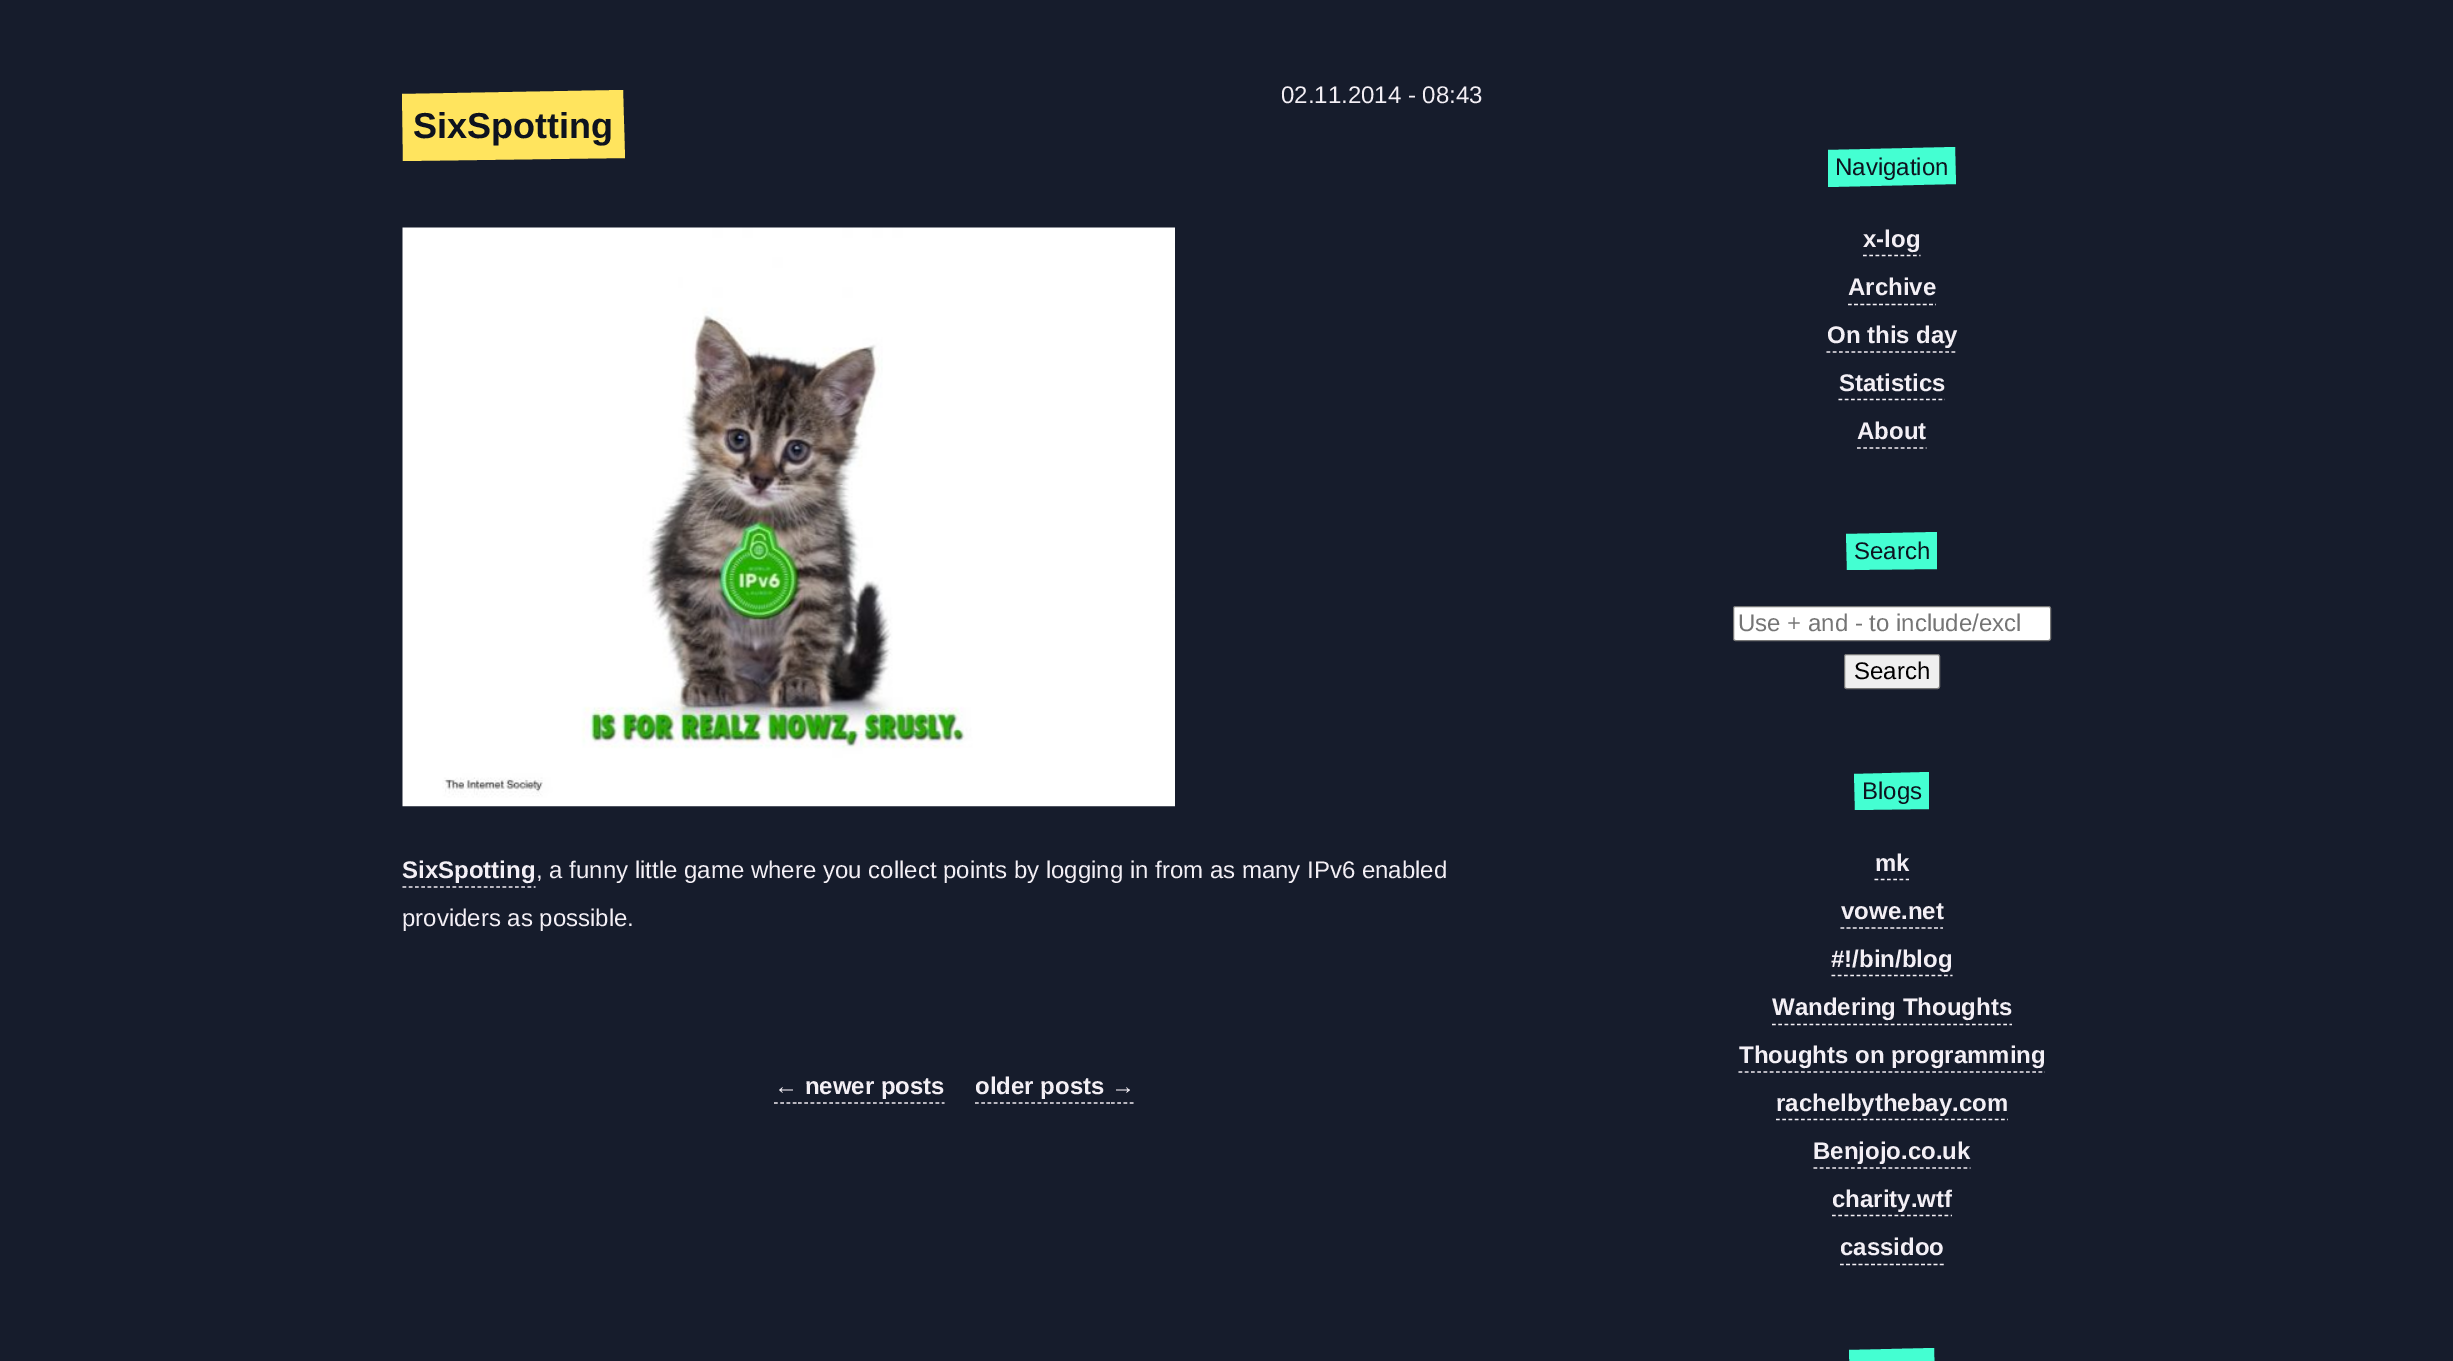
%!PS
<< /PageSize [2453 1361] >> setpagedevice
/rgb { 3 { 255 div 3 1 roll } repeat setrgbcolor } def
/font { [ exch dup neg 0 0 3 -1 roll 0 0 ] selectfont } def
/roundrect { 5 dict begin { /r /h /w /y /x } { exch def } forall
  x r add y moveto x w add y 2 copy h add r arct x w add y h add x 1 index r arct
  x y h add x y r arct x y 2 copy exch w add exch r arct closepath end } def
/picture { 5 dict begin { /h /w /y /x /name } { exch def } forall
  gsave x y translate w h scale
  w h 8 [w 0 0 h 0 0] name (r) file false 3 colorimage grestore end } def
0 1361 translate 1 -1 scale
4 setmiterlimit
22 28 44 rgb
0 0 2453 1361 rectfill
255 228 94 rgb
402 94 moveto 623 90 lineto 625 158 lineto 403 161 lineto closepath fill
(img/1.rgb) 402 227 773 580 picture
243 239 245 rgb
1.2 setlinewidth
[3.75 2.5] 0 setdash
402.5 887 moveto 535.5 887 lineto stroke
774 1103 moveto 798 1103 lineto stroke
798 1103 moveto 944.5 1103 lineto stroke
975 1103 moveto 1111 1103 lineto stroke
1111 1103 moveto 1135 1103 lineto stroke
68 255 210 rgb
1828 150 moveto 1955 147 lineto 1956 184 lineto 1828 187 lineto closepath fill
243 239 245 rgb
1863 255.5 moveto 1920.5 255.5 lineto stroke
1848 304.5 moveto 1936 304.5 lineto stroke
1826.5 352 moveto 1957 352 lineto stroke
1838.5 399.5 moveto 1945 399.5 lineto stroke
1857 448 moveto 1926.5 448 lineto stroke
68 255 210 rgb
1846 534 moveto 1937 532 lineto 1937 569 lineto 1847 570 lineto closepath fill
255 255 255 rgb
1733.5 606.5 317 34 2 roundrect gsave fill grestore
118 118 118 rgb
1 setlinewidth
[] 0 setdash
stroke
239 239 239 rgb
1844.5 654.5 95 34 2 roundrect gsave fill grestore
118 118 118 rgb
stroke
68 255 210 rgb
1854 774 moveto 1929 772 lineto 1929 809 lineto 1855 810 lineto closepath fill
243 239 245 rgb
1.2 setlinewidth
[3.75 2.5] 0 setdash
1874.5 879.5 moveto 1909 879.5 lineto stroke
1840.5 928 moveto 1943 928 lineto stroke
1831.5 975.5 moveto 1952.5 975.5 lineto stroke
1772 1024.5 moveto 2012 1024.5 lineto stroke
1738.5 1072 moveto 2045 1072 lineto stroke
1776 1119.5 moveto 2008 1119.5 lineto stroke
1813.5 1168 moveto 1970.5 1168 lineto stroke
1832 1215.5 moveto 1952 1215.5 lineto stroke
1840 1264.5 moveto 1944 1264.5 lineto stroke
68 255 210 rgb
1849 1350 moveto 1934 1348 lineto 1935 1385 lineto 1850 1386 lineto closepath fill
/LiberationSans-Regular 24 font
243 239 245 rgb
1281 103 moveto (02.11.2014 - 08:43) show
/LiberationSans-Bold 36 font
14 19 31 rgb
413 138 moveto (SixSpotting) show
/LiberationSans-Bold 24 font
243 239 245 rgb
402 878 moveto (SixSpotting) show
/LiberationSans-Regular 24 font
536 878 moveto (, a funny little game where you collect points by logging in from as many IPv6 enabled) show
402 926 moveto (providers as possible.) show
/LiberationSans-Bold 24 font
774 1094 moveto (← newer posts) show
975 1094 moveto (older posts →) show
/LiberationSans-Regular 24 font
14 19 31 rgb
1835 175 moveto (Navigation) show
/LiberationSans-Bold 24 font
243 239 245 rgb
[
  [(x-log) 1863 247]
  [(Archive) 1848 295]
  [(On this day) 1827 343]
  [(Statistics) 1839 391]
  [(About) 1857 439]
] { aload pop moveto show } forall
/LiberationSans-Regular 24 font
14 19 31 rgb
1854 559 moveto (Search) show
117 117 117 rgb
1738 631 moveto (Use + and - to include/excl) show
0 0 0 rgb
1854 679 moveto (Search) show
14 19 31 rgb
1862 799 moveto (Blogs) show
/LiberationSans-Bold 24 font
243 239 245 rgb
[
  [(mk) 1875 871]
  [(vowe.net) 1841 919]
  [(#!/bin/blog) 1831 967]
  [(Wandering Thoughts) 1772 1015]
  [(Thoughts on programming) 1739 1063]
  [(rachelbythebay.com) 1776 1111]
  [(Benjojo.co.uk) 1813 1159]
  [(charity.wtf) 1832 1207]
  [(cassidoo) 1840 1255]
] { aload pop moveto show } forall
showpage
